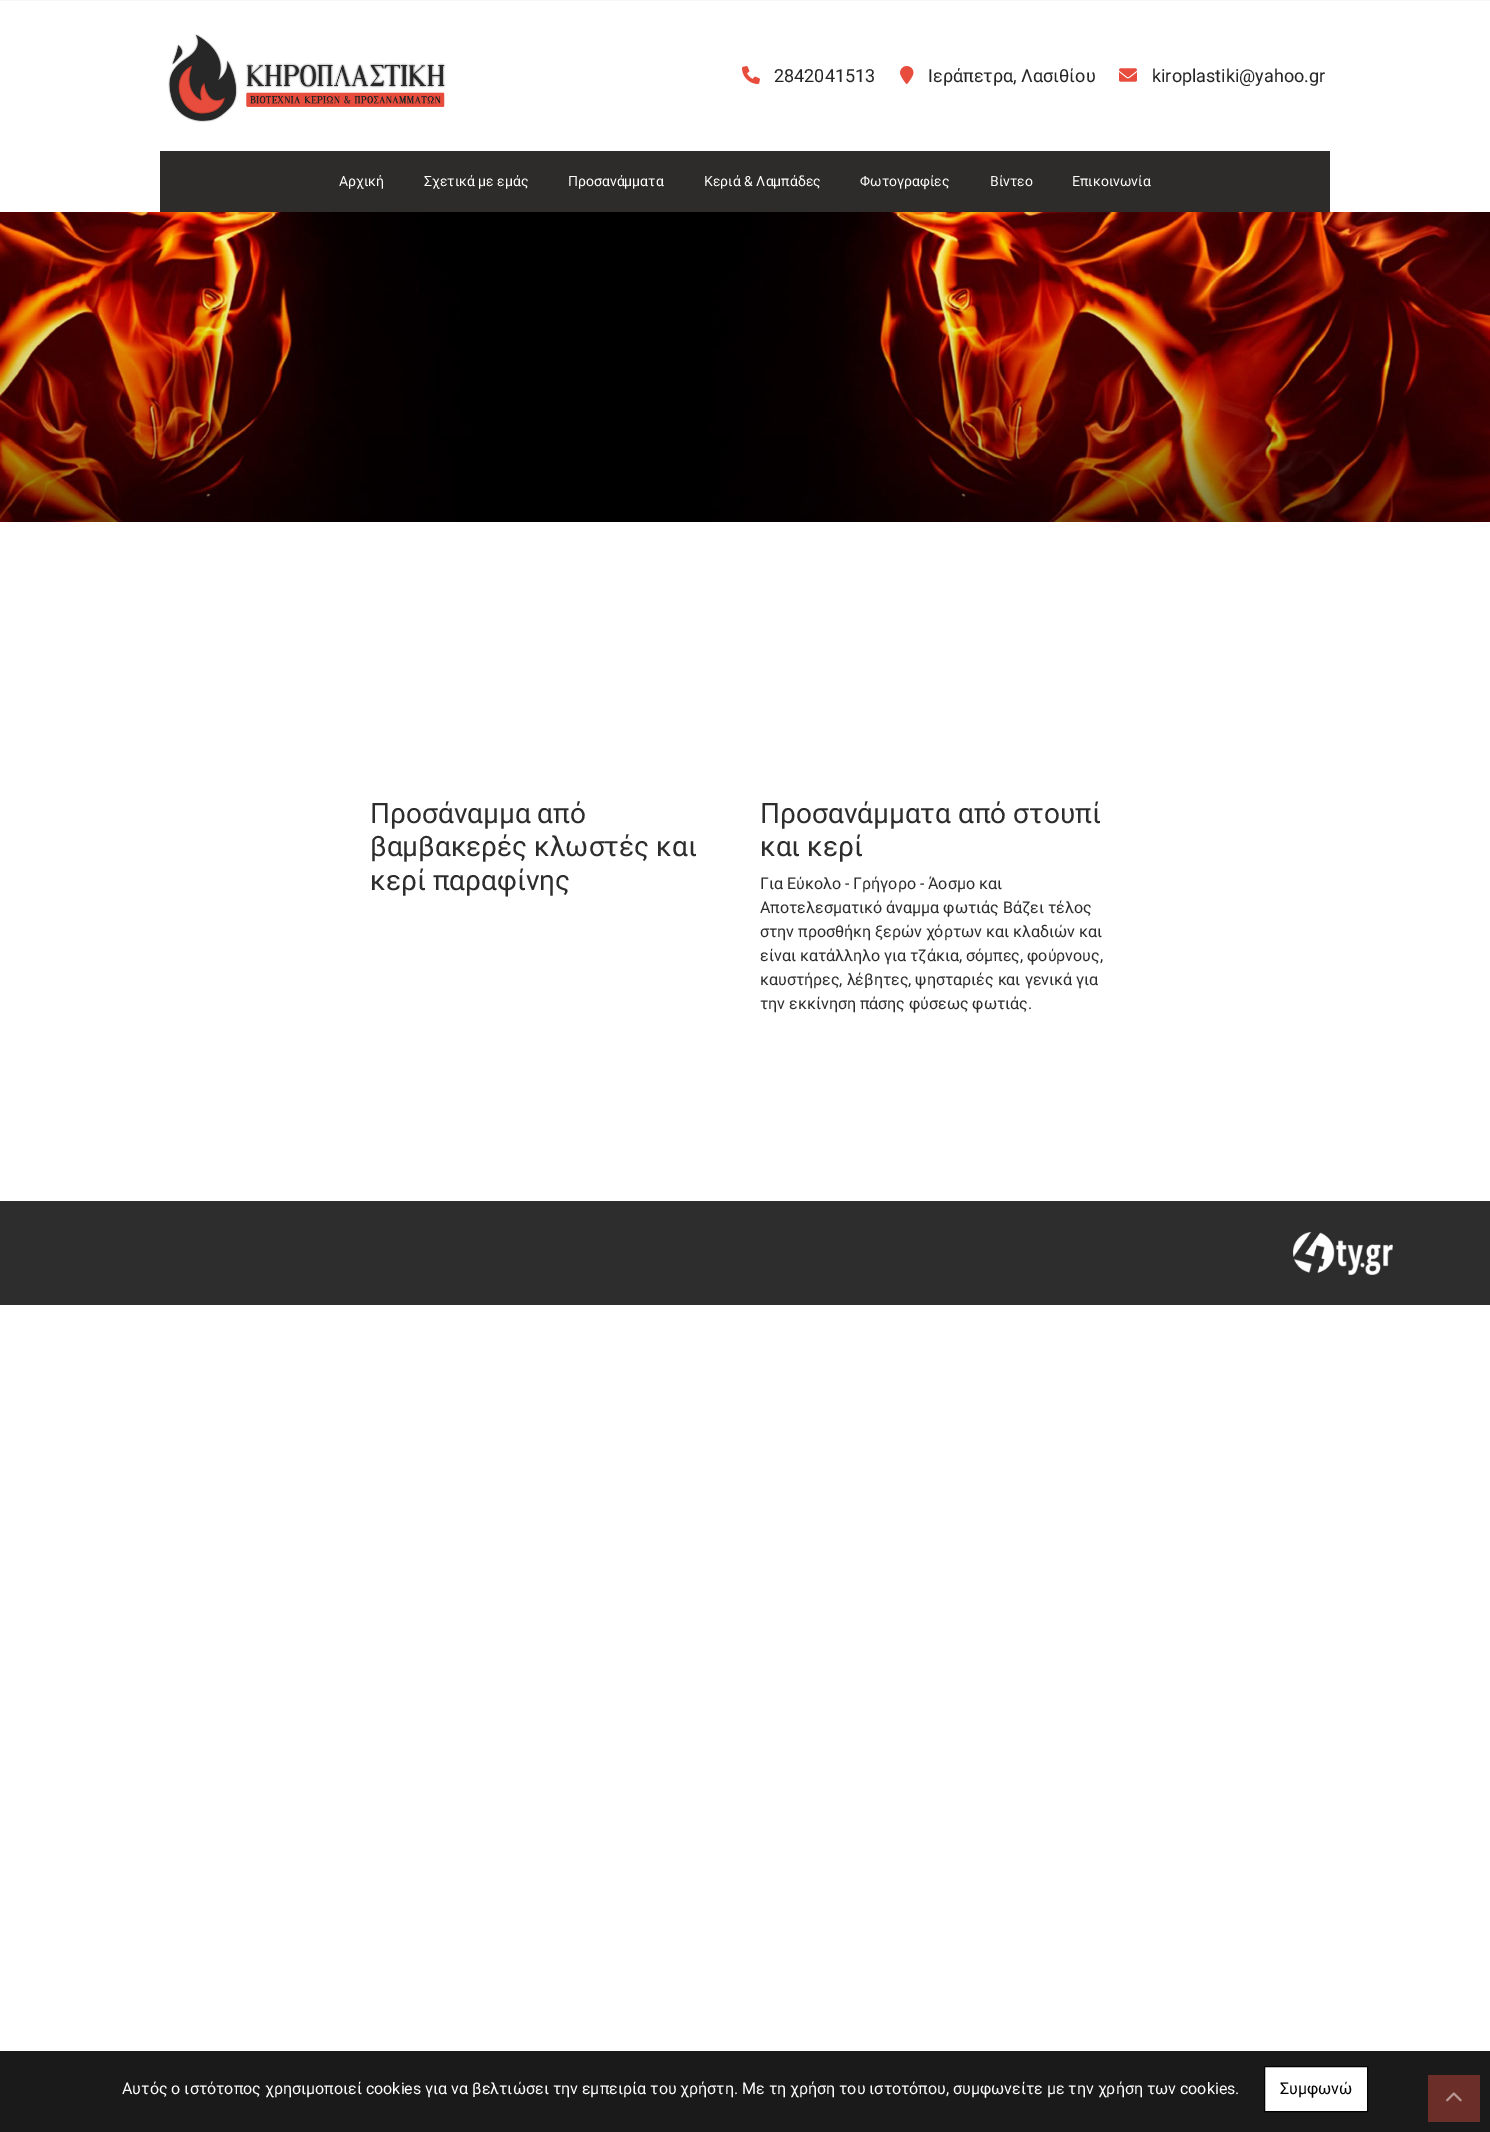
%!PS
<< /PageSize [1490 2132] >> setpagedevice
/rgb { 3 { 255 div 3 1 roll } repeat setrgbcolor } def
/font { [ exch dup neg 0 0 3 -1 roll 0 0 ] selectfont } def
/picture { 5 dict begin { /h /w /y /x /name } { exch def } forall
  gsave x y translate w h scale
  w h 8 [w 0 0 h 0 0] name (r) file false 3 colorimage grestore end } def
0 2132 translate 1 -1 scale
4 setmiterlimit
255 255 255 rgb
0 0 1490 2132 rectfill
247 247 247 rgb
0 0 1490 1 rectfill
(img/1.rgb) 168 34 278 88 picture
(img/2.rgb) 742 66 18 18 picture
(img/3.rgb) 900 66 14 18 picture
(img/4.rgb) 1119 68 18 14 picture
46 44 43 rgb
160 151 1170 61 rectfill
(img/5.rgb) 0 212 1490 310 picture
45 45 45 rgb
0 1201 1490 104 rectfill
(img/6.rgb) 1293 1232 100 43 picture
26 26 26 rgb
0 2051 1490 81 rectfill
255 255 255 rgb
1264.5 2066.5 moveto 1367.5 2066.5 lineto 1367.5 2111.5 lineto 1264.5 2111.5 lineto closepath gsave fill grestore
0 0 0 rgb
stroke
108 46 40 rgb
1428 2075 52 47 rectfill
(img/7.rgb) 1446 2092 16 10 picture
/Roboto-Regular 18 font
37 37 37 rgb
[
  [(2842041513) 774 82]
  [(Ιεράπετρα, Λασιθίου) 928 82]
  [(kiroplastiki@yahoo.gr) 1152 82]
] { aload pop moveto show } forall
/Roboto-Regular 14 font
255 255 255 rgb
[
  [(Αρχική) 339 186]
  [(Σχετικά με εμάς) 424 186]
  [(Προσανάμματα) 568 186]
  [(Κεριά & Λαμπάδες) 704 186]
  [(Φωτογραφίες) 860 186]
  [(Βίντεο) 990 186]
  [(Επικοινωνία) 1072 186]
] { aload pop moveto show } forall
/Roboto-Regular 28 font
45 45 45 rgb
[
  [(Προσάναμμα από) 370 823]
  [(βαμβακερές κλωστές και) 370 856]
  [(κερί παραφίνης) 370 890]
  [(Προσανάμματα από στουπί) 760 823]
  [(και κερί) 760 856]
] { aload pop moveto show } forall
/Roboto-Regular 16 font
[
  [(Για Εύκολο - Γρήγορο - Άοσμο και) 760 889]
  [(Αποτελεσματικό άναμμα φωτιάς Βάζει τέλος) 760 913]
  [(στην προσθήκη ξερών χόρτων και κλαδιών και) 760 937]
  [(είναι κατάλληλο για τζάκια, σόμπες, φούρνους,) 760 961]
  [(καυστήρες, λέβητες, ψησταριές και γενικά για) 760 985]
  [(την εκκίνηση πάσης φύσεως φωτιάς.) 760 1009]
] { aload pop moveto show } forall
255 255 255 rgb
122 2094 moveto (Αυτός ο ιστότοπος χρησιμοποιεί cookies για να βελτιώσει την εμπειρία του χρήστη. Με τη χρήση του ιστοτόπου, συμφωνείτε με την χρήση των cookies.) show
0 0 0 rgb
1280 2094 moveto (Συμφωνώ) show
showpage
